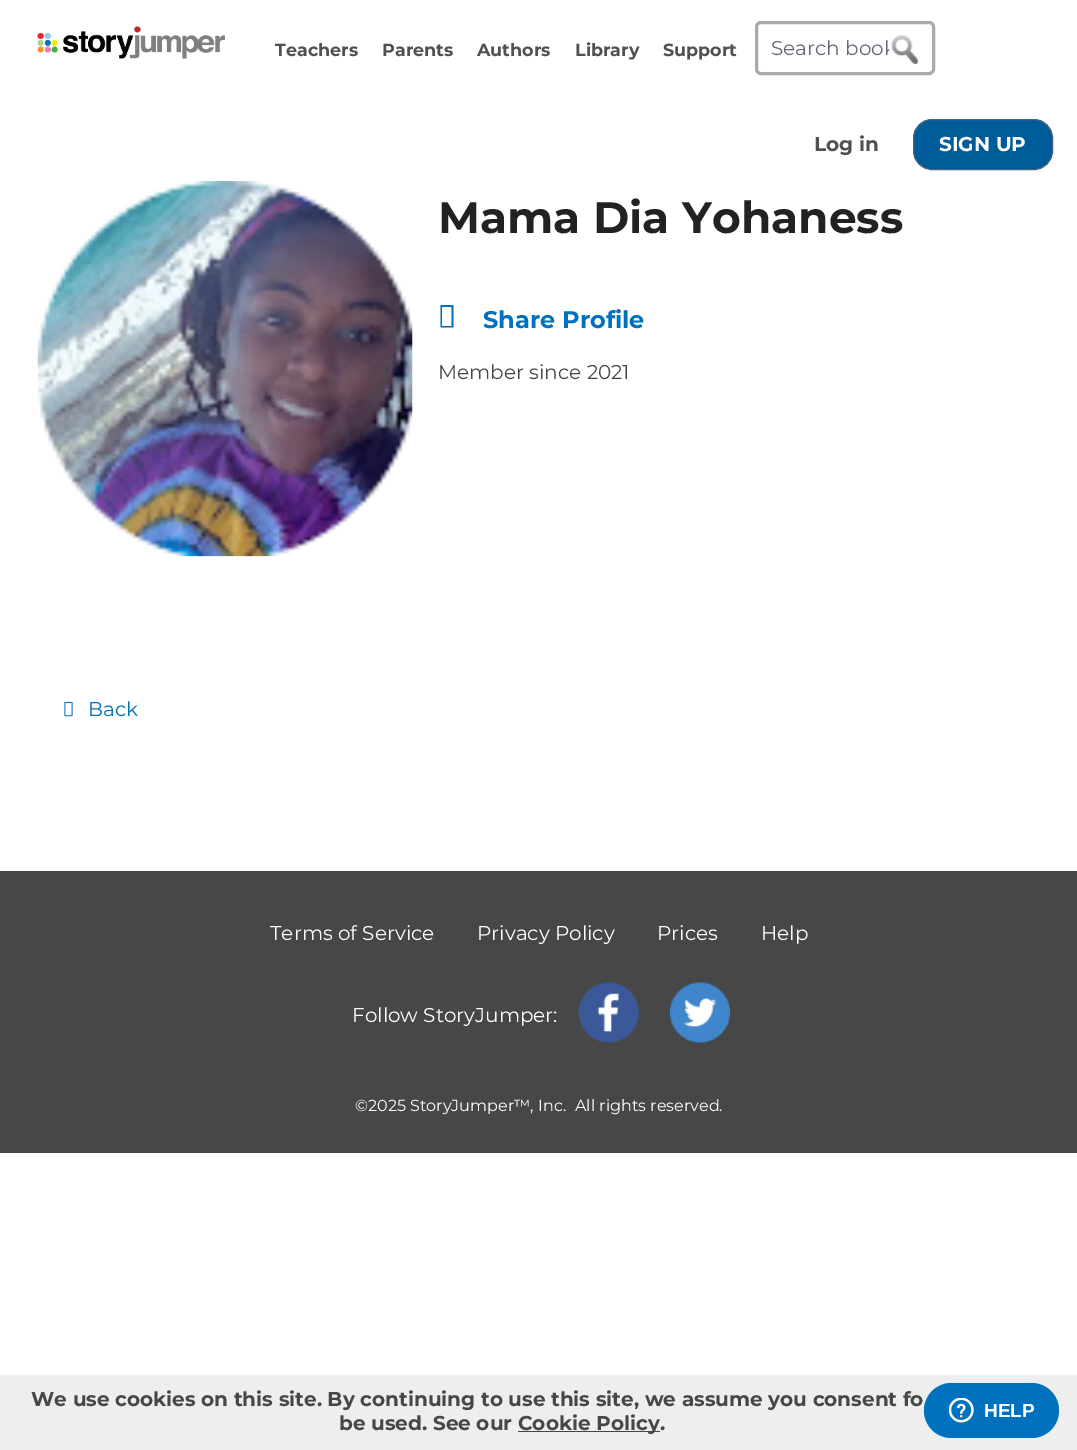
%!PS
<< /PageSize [1077 1450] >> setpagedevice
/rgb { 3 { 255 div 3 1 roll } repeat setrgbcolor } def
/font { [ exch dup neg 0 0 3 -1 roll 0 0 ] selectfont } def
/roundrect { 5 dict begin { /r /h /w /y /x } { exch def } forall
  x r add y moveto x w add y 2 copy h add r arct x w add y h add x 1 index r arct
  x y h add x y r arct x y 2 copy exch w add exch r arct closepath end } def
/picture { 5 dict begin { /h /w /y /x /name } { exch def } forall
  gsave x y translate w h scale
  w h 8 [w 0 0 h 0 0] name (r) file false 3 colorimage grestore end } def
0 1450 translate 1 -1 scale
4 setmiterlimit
255 255 255 rgb
0 0 1077 1450 rectfill
(img/1.rgb) 37 26 188 33 picture
170 170 170 rgb
3 setlinewidth
756.5 22.5 177 51 4.5 roundrect stroke
(img/2.rgb) 891 35 28 29 picture
0 92 153 rgb
913.5 119.5 139 50 18.5 roundrect gsave fill grestore
72 101 130 rgb
1 setlinewidth
stroke
(img/3.rgb) 37 181 376 376 picture
0 113 188 rgb
440.5 327.5 moveto 440.5 305 lineto 453.5 305 lineto 453.5 327.5 lineto closepath 442 326 moveto 451.5 326 lineto 451.5 307 lineto 442 307 lineto closepath fill
(img/4.rgb) 64 701 9 16 picture
71 71 71 rgb
0 871 1077 282 rectfill
(img/5.rgb) 578 982 61 61 picture
(img/6.rgb) 670 982 60 61 picture
238 238 238 rgb
0 1375 1077 75 rectfill
68 68 68 rgb
518 1431 142 1 rectfill
0 113 188 rgb
924 1383 135 55 27.5 roundrect fill
(img/7.rgb) 949 1398 25 25 picture
/Montserrat-Bold 17.5 font
80 80 80 rgb
[
  [(Teachers) 275 56]
  [(Parents) 382 56]
  [(Authors) 477 56]
  [(Library) 575 56]
  [(Support) 663 56]
] { aload pop moveto show } forall
gsave
770 36 119 24 rectclip
/Montserrat-Regular 20 font
102 102 119 rgb
771 55 moveto (Search book) show
grestore
/Montserrat-Bold 20 font
814 151 moveto (Log in) show
255 255 255 rgb
939 151 moveto (SIGN UP) show
/Montserrat-Bold 44 font
34 34 34 rgb
438 233 moveto (Mama Dia Yohaness) show
/Montserrat-Bold 24 font
0 113 188 rgb
483 328 moveto (Share Profile) show
/Montserrat-Regular 20 font
71 71 71 rgb
438 379 moveto (Member since 2021) show
0 113 188 rgb
88 716 moveto (Back) show
255 255 255 rgb
[
  [(Terms of Service) 270 940]
  [(Privacy Policy) 477 940]
  [(Prices) 657 940]
  [(Help) 761 940]
  [(Follow StoryJumper:) 352 1022]
] { aload pop moveto show } forall
/Montserrat-Regular 16 font
355 1111 moveto (©2025 StoryJumper™, Inc.) show
575 1111 moveto (All rights reserved.) show
/Montserrat-Bold 20 font
71 71 71 rgb
[
  [(We use cookies on this site. By continuing to use this site, we assume you consent fo) 31 1406]
  [(be used. See our) 339 1430]
  [(Cookie Policy.) 518 1430]
] { aload pop moveto show } forall
/LiberationSans-Bold 19 font
255 255 255 rgb
984 1417 moveto (HELP) show
showpage
